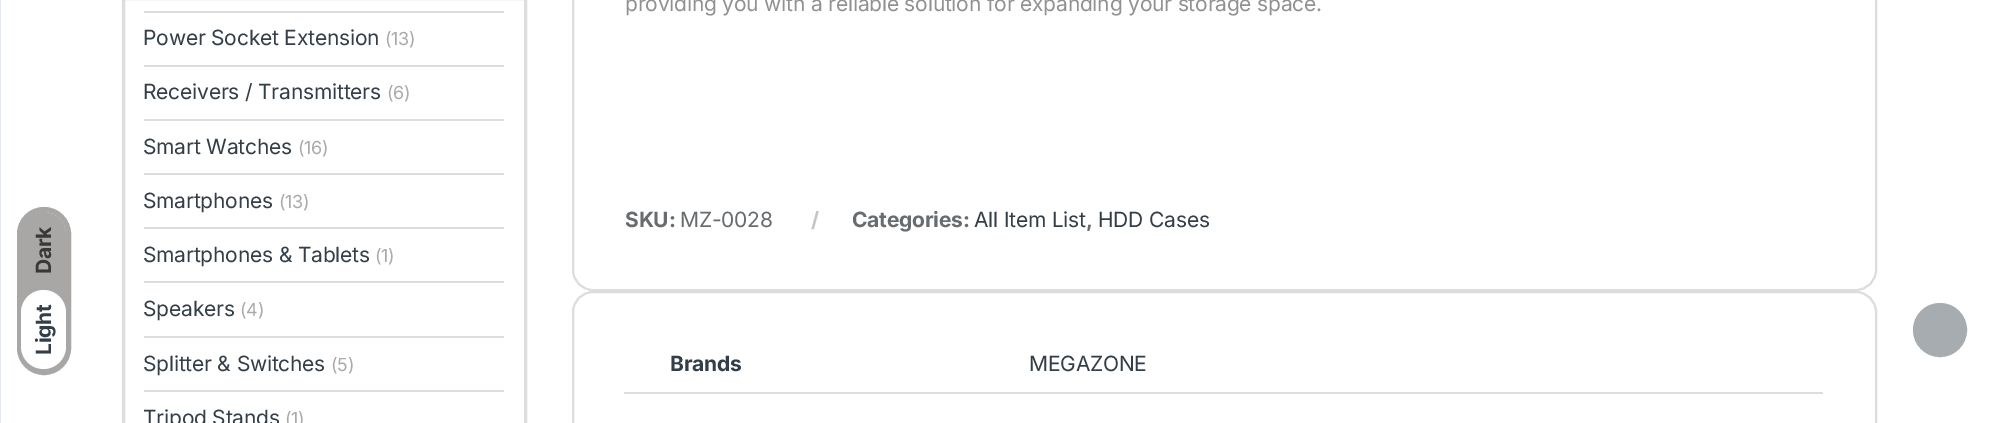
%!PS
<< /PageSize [1996 423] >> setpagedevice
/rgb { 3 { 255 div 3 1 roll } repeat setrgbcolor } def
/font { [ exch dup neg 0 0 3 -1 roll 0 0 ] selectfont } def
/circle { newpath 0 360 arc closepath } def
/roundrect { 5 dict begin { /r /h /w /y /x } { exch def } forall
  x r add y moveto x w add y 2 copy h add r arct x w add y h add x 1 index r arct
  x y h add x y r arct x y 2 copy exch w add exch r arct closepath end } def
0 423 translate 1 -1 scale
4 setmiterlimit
255 255 255 rgb
0 0 1996 423 rectfill
169 166 166 rgb
5 setlinewidth
19.5 209.5 49 163 24.5 roundrect stroke
21 212 45 159 22.5 roundrect fill
255 255 255 rgb
21 290 45 79 22.5 roundrect fill
227 233 239 rgb
0 0 1 423 rectfill
221 221 221 rgb
3 setlinewidth
123.5 -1.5 402 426 rectstroke
[
  [144 11 360 2 221 221 221]
  [144 65 360 2 221 221 221]
  [144 119 360 2 221 221 221]
  [144 173 360 2 221 221 221]
  [144 227 360 2 221 221 221]
  [144 281 360 2 221 221 221]
  [144 336 360 2 221 221 221]
  [144 390 360 2 221 221 221]
] { aload pop rgb rectfill } forall
2 setlinewidth
573 -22 1303 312 20 roundrect stroke
573 292 1303 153 20 roundrect stroke
624 392 1199 2 rectfill
167 172 177 rgb
1940 330 26 circle gsave fill grestore
stroke
/Inter-Bold 21 font
56 56 56 rgb
gsave 51 274 translate -90 rotate 0 0 moveto -0.2 0 (Dark) ashow grestore
51 62 72 rgb
gsave 51 355 translate -90 rotate 0 0 moveto -0.2 0 (Light) ashow grestore
/Inter-Regular 21 font
143 45 moveto -0.2 0 (Power Socket Extension) ashow
/Inter-Regular 18 font
170 170 170 rgb
385 45 moveto -0.2 0 (\(13\)) ashow
/Inter-Regular 21 font
51 62 72 rgb
143 99 moveto -0.2 0 (Receivers / Transmitters) ashow
/Inter-Regular 18 font
170 170 170 rgb
387 99 moveto -0.2 0 (\(6\)) ashow
/Inter-Regular 21 font
51 62 72 rgb
143 154 moveto -0.2 0 (Smart Watches) ashow
/Inter-Regular 18 font
170 170 170 rgb
298 154 moveto -0.2 0 (\(16\)) ashow
/Inter-Regular 21 font
51 62 72 rgb
143 208 moveto -0.2 0 (Smartphones) ashow
/Inter-Regular 18 font
170 170 170 rgb
279 208 moveto -0.2 0 (\(13\)) ashow
/Inter-Regular 21 font
51 62 72 rgb
143 262 moveto -0.2 0 (Smartphones & Tablets) ashow
/Inter-Regular 18 font
170 170 170 rgb
375 262 moveto -0.2 0 (\(1\)) ashow
/Inter-Regular 21 font
51 62 72 rgb
143 316 moveto -0.2 0 (Speakers) ashow
/Inter-Regular 18 font
170 170 170 rgb
240 316 moveto -0.2 0 (\(4\)) ashow
/Inter-Regular 21 font
51 62 72 rgb
143 371 moveto -0.2 0 (Splitter & Switches) ashow
/Inter-Regular 18 font
170 170 170 rgb
331 371 moveto -0.2 0 (\(5\)) ashow
/Inter-Regular 21 font
51 62 72 rgb
143 425 moveto -0.2 0 (Tripod Stands) ashow
/Inter-Regular 18 font
170 170 170 rgb
285 425 moveto -0.2 0 (\(1\)) ashow
/Inter-Regular 21 font
145 145 145 rgb
625 11 moveto -0.2 0 (providing you with a reliable solution for expanding your storage space.) ashow
/Inter-Bold 21 font
104 108 111 rgb
625 227 moveto -0.2 0 (SKU:) ashow
/Inter-Regular 21 font
680 227 moveto -0.2 0 (MZ-0028) ashow
/Inter-Bold 21 font
197 197 197 rgb
811 227 moveto -0.2 0 (/) ashow
104 108 111 rgb
852 227 moveto -0.2 0 (Categories:) ashow
/Inter-Regular 21 font
51 62 72 rgb
974 227 moveto -0.2 0 (All Item List) ashow
/Inter-Bold 21 font
104 108 111 rgb
1086 227 moveto -0.2 0 (,) ashow
/Inter-Regular 21 font
51 62 72 rgb
1098 227 moveto -0.2 0 (HDD Cases) ashow
/Inter-Bold 21 font
670 371 moveto -0.2 0 (Brands) ashow
/Inter-Regular 21 font
1029 371 moveto -0.2 0 (MEGAZONE) ashow
showpage
